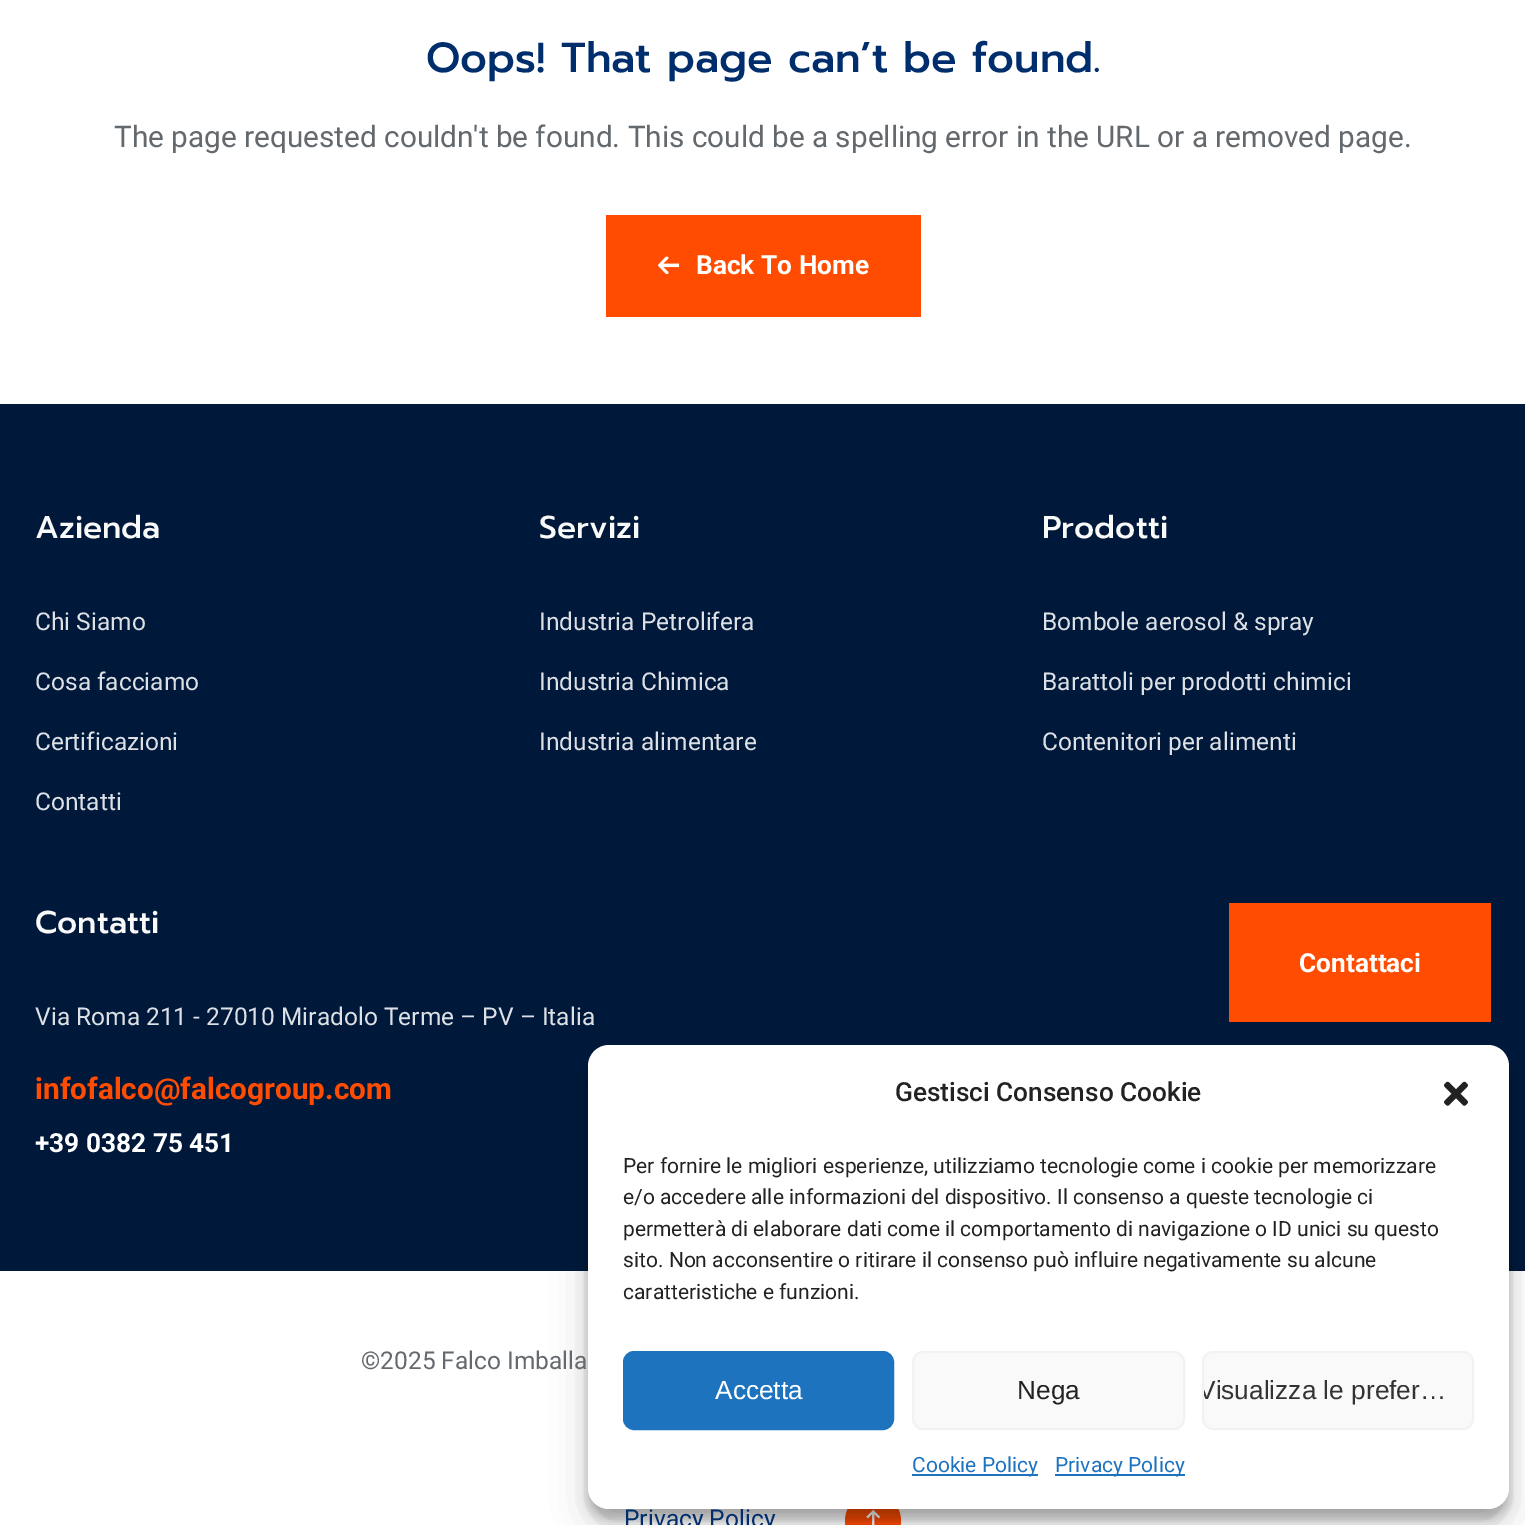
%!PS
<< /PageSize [1525 1525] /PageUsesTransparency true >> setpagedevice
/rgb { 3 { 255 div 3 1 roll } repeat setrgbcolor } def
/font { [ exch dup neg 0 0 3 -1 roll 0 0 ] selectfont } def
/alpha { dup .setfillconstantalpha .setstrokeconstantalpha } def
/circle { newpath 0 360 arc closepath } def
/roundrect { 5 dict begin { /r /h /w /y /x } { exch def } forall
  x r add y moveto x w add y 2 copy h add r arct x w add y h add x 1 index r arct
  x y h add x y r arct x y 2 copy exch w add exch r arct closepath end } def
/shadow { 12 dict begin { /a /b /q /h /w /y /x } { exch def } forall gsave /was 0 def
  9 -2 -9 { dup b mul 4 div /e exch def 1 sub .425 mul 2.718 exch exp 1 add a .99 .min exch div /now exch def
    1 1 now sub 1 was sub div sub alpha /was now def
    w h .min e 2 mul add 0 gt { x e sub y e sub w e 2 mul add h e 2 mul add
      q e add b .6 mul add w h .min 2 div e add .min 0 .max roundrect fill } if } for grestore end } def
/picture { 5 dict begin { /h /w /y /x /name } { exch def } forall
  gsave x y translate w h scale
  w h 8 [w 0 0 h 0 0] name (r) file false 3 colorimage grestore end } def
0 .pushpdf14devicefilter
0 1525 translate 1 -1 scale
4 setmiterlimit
255 255 255 rgb
0 0 1525 1525 rectfill
255 76 1 rgb
606 215 315 102 rectfill
(img/1.rgb) 658 256 22 19 picture
0 25 59 rgb
0 404 1525 867 rectfill
255 76 1 rgb
1229 903 262 119 rectfill
873 1521 28 circle fill
(img/2.rgb) 866 1509 15 16 picture
0 0 0 rgb
588 1055 921 464 21 5 0.23 shadow
588 1062 921 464 21 17.5 0.19 shadow
/Prompt-Medium 42 font
0 46 109 rgb
426 72 moveto (Oops! That page can’t be found.) show
/Roboto-Regular 29.75 font
100 105 110 rgb
114 147 moveto (The page requested couldn't be found. This could be a spelling error in the URL or a removed page.) show
/Roboto-Bold 26.25 font
255 255 255 rgb
696 274 moveto (Back To Home) show
/Prompt-Medium 31.5 font
249 249 249 rgb
35 538 moveto (Azienda) show
/Roboto-Regular 24.5 font
221 224 229 rgb
[
  [(Chi Siamo) 35 630]
  [(Cosa facciamo) 35 690]
  [(Certificazioni) 35 750]
  [(Contatti) 35 810]
] { aload pop moveto show } forall
/Prompt-Medium 31.5 font
249 249 249 rgb
539 538 moveto (Servizi) show
/Roboto-Regular 24.5 font
221 224 229 rgb
[
  [(Industria Petrolifera) 539 630]
  [(Industria Chimica) 539 690]
  [(Industria alimentare) 539 750]
] { aload pop moveto show } forall
/Prompt-Medium 31.5 font
249 249 249 rgb
1042 538 moveto (Prodotti) show
/Roboto-Regular 24.5 font
221 224 229 rgb
[
  [(Bombole aerosol & spray) 1042 630]
  [(Barattoli per prodotti chimici) 1042 690]
  [(Contenitori per alimenti) 1042 750]
] { aload pop moveto show } forall
/Prompt-Medium 31.5 font
249 249 249 rgb
35 933 moveto (Contatti) show
/Roboto-Regular 24.5 font
221 224 229 rgb
35 1025 moveto (Via Roma 211 - 27010 Miradolo Terme – PV – Italia) show
/Roboto-Bold 29.75 font
255 76 1 rgb
35 1099 moveto (infofalco@falcogroup.com) show
/Roboto-Bold 26.25 font
255 255 255 rgb
35 1152 moveto (+39 0382 75 451) show
1299 972 moveto (Contattaci) show
/Roboto-Regular 24.5 font
100 105 110 rgb
361 1369 moveto (©2025 Falco Imballa) show
0 46 109 rgb
624 1527 moveto (Privacy Policy) show
255 255 255 rgb
588 1045 921 464 21 roundrect fill
/Roboto-Medium 26.25 font
34 34 34 rgb
895 1101 moveto (Gestisci Consenso Cookie) show
(img/3.rgb) 1444 1081 24 25 picture
/Roboto-Regular 21 font
[
  [(Per fornire le migliori esperienze, utilizziamo tecnologie come i cookie per memorizzare) 623 1173]
  [(e/o accedere alle informazioni del dispositivo. Il consenso a queste tecnologie ci) 623 1204]
  [(permetterà di elaborare dati come il comportamento di navigazione o ID unici su questo) 623 1236]
  [(sito. Non acconsentire o ritirare il consenso può influire negativamente su alcune) 623 1267]
  [(caratteristiche e funzioni.) 623 1299]
] { aload pop moveto show } forall
30 115 190 rgb
624 1352 269 77 10 roundrect gsave fill grestore
2 setlinewidth
stroke
/LiberationSans-Regular 26.25 font
255 255 255 rgb
715 1399 moveto (Accetta) show
249 249 249 rgb
913 1352 271 77 10 roundrect gsave fill grestore
242 242 242 rgb
stroke
34 34 34 rgb
1017 1399 moveto (Nega) show
249 249 249 rgb
1203 1352 270 77 10 roundrect gsave fill grestore
242 242 242 rgb
stroke
gsave
1204 1353 268 75 9 roundrect clip newpath
51 51 51 rgb
1198 1399 moveto (Visualizza le prefer…) show
grestore
30 115 190 rgb
912 1474 126 2 rectfill
/Roboto-Regular 21 font
912 1472 moveto (Cookie Policy) show
1055 1474 130 2 rectfill
1055 1472 moveto (Privacy Policy) show
.poppdf14devicefilter showpage
